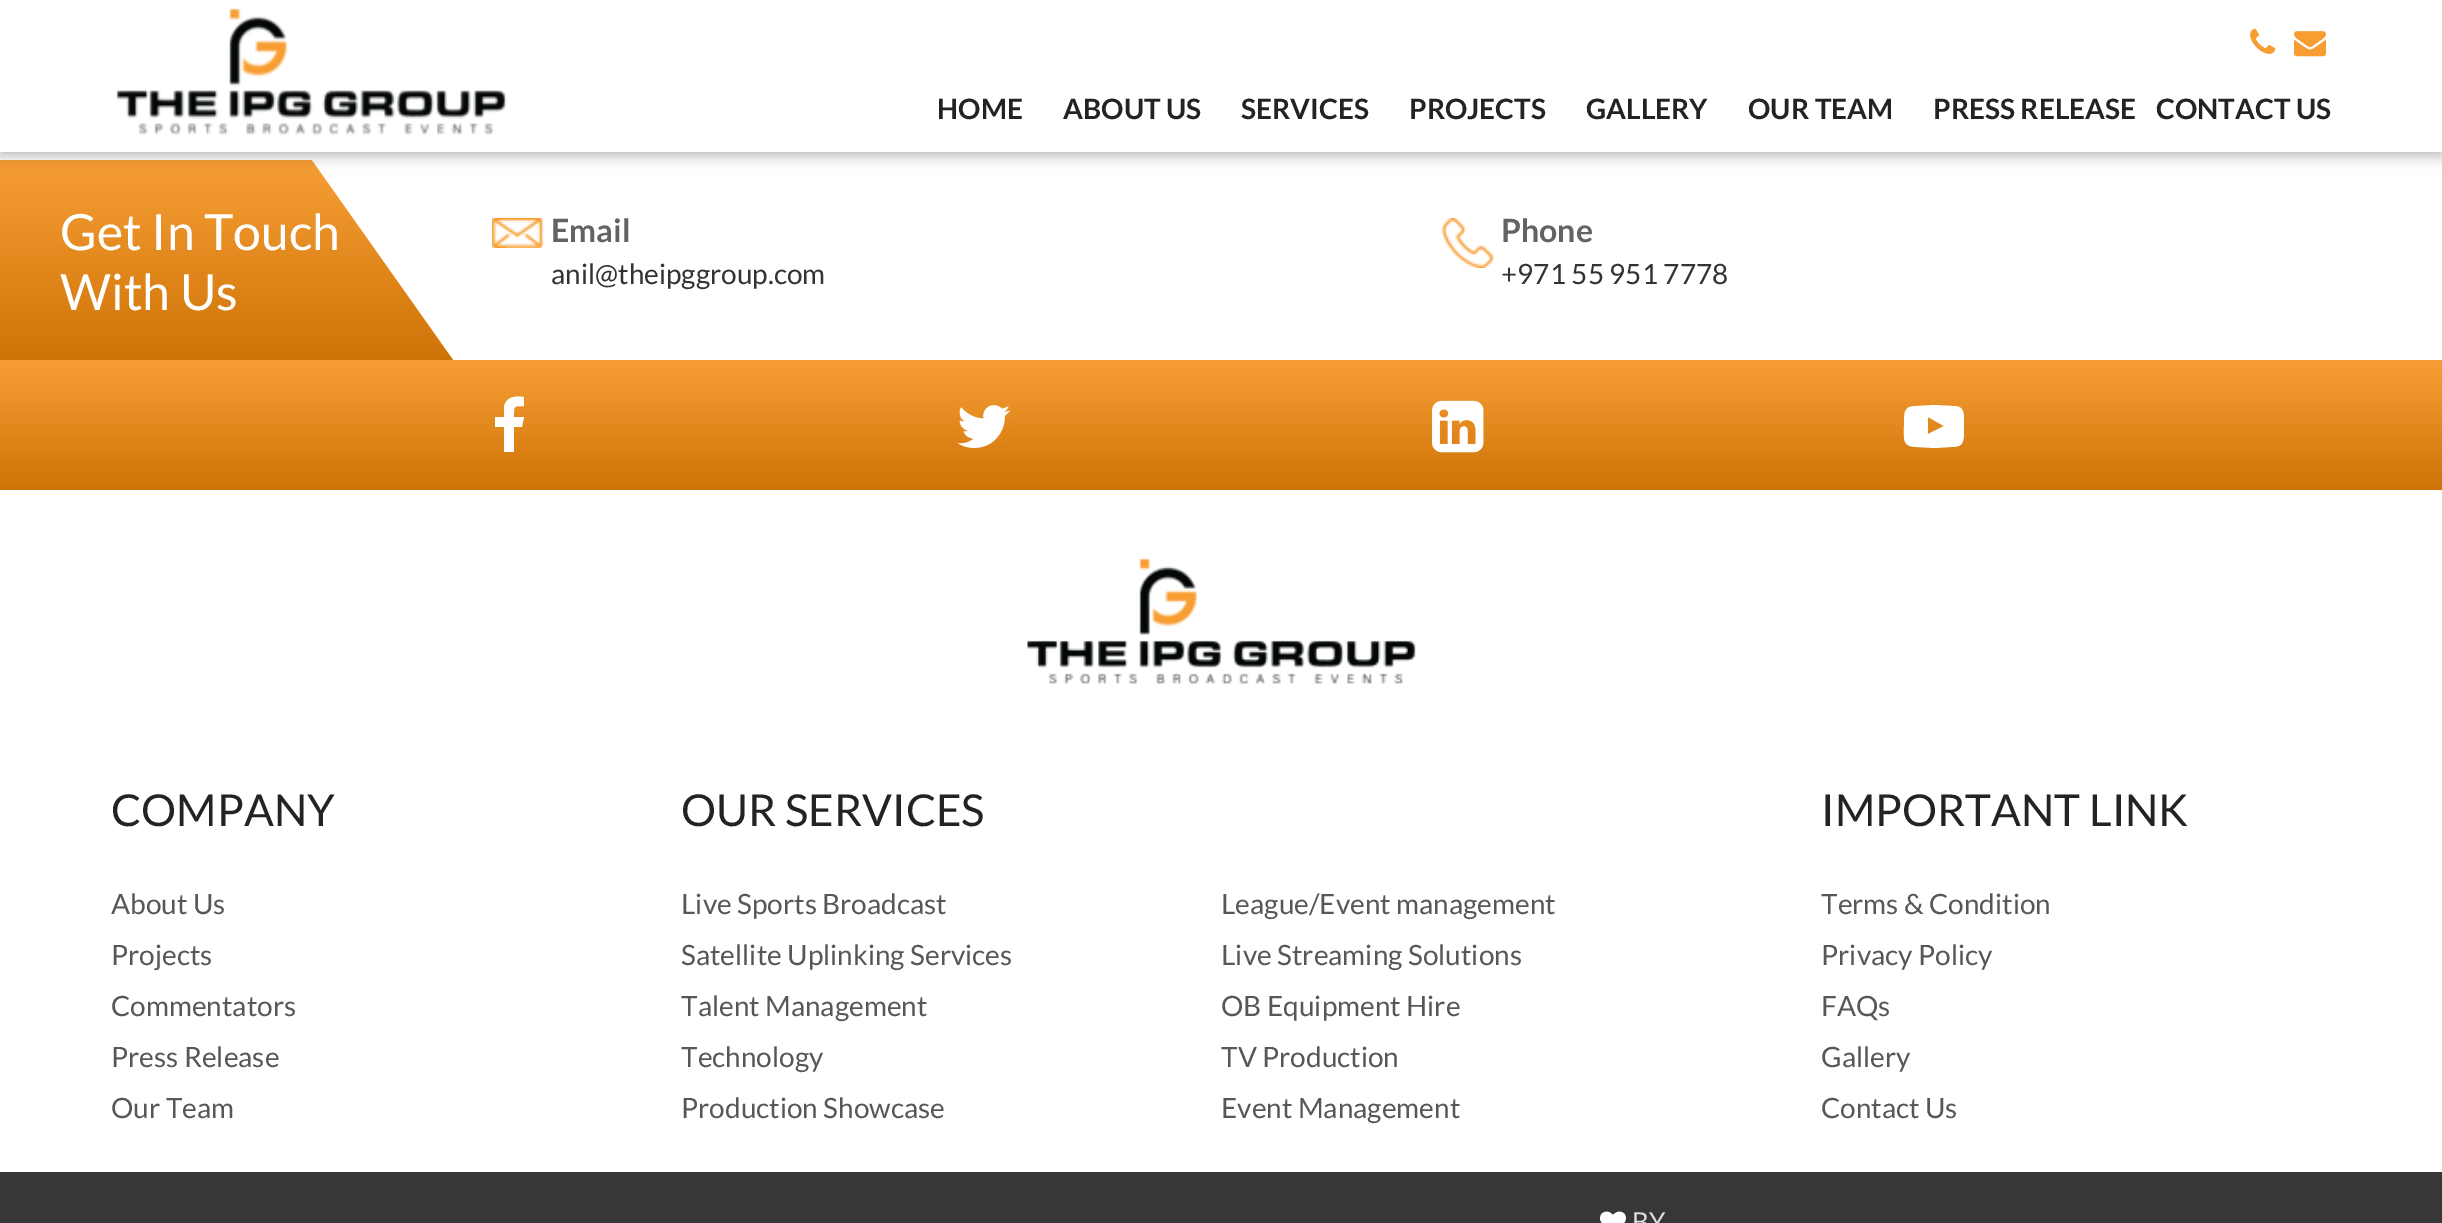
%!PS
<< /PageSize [2442 1223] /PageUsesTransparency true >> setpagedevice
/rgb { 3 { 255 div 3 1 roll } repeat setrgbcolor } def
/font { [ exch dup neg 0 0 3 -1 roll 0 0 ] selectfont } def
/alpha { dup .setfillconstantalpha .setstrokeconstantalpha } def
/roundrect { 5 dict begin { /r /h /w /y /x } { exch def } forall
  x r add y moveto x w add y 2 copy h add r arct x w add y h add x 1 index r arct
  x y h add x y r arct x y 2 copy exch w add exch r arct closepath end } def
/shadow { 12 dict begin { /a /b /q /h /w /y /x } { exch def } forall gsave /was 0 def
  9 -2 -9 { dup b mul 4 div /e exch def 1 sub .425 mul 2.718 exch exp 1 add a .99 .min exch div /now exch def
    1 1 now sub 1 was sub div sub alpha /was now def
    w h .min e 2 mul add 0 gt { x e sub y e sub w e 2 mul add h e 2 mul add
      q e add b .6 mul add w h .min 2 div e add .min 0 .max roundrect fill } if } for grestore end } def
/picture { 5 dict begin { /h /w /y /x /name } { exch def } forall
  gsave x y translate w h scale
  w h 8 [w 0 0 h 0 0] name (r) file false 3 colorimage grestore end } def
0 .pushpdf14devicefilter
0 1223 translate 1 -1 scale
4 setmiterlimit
255 255 255 rgb
0 0 2442 1223 rectfill
gsave 0 160 moveto 454 160 lineto 454 360 lineto 0 360 lineto closepath clip newpath
<< /ShadingType 2 /ColorSpace /DeviceRGB /Coords [255 160 255 360] /Extend [true true] /Function << /FunctionType 2 /Domain [0 1] /C0 [0.969 0.624 0.212] /C1 [0.808 0.451 0.027] /N 1 >> >> shfill grestore
312 160 moveto 510 160 lineto 510 440 lineto closepath fill
0 0 0 rgb
0 4 2442 152 0 10 0.12 shadow
0 4 2442 152 0 5 0.16 shadow
255 255 255 rgb
0 0 2442 152 rectfill
(img/1.rgb) 116 8 391 127 picture
(img/2.rgb) 2250 28 26 26 picture
(img/3.rgb) 2294 31 32 26 picture
(img/4.rgb) 492 218 52 30 picture
(img/5.rgb) 1442 218 52 50 picture
gsave 0 360 moveto 2442 360 lineto 2442 490 lineto 0 490 lineto closepath clip newpath
<< /ShadingType 2 /ColorSpace /DeviceRGB /Coords [1221 360 1221 490] /Extend [true true] /Function << /FunctionType 2 /Domain [0 1] /C0 [0.969 0.624 0.212] /C1 [0.808 0.451 0.027] /N 1 >> >> shfill grestore
524 397 moveto 524 406 lineto 513 406 514 406 514 417 curveto 524 417 lineto 522 427 lineto 514 427 lineto 514 452 lineto 504 452 lineto 504 427 lineto 495 427 lineto 495 417 lineto 504 417 lineto 504 407 lineto 506 396 516 396 524 397 curveto closepath fill
(img/6.rgb) 957 405 54 43 picture
(img/7.rgb) 1432 400 52 53 picture
1928 434 moveto 1944 426 lineto 1928 417 lineto closepath 1934 405 moveto 1952 406 lineto 1959 406 1963 407 1964 416 curveto 1964 427 lineto 1964 442 1964 447 1951 447 curveto 1934 448 lineto 1917 447 lineto 1902 447 1904 439 1904 426 curveto 1904 411 1904 406 1917 406 curveto closepath fill
(img/8.rgb) 1027 558 389 126 picture
55 55 55 rgb
0 1172 2442 51 rectfill
(img/9.rgb) 1600 1211 26 12 picture
/Lato-Bold 28 font
35 35 35 rgb
[
  [(HOME) 937 119]
  [(ABOUT US) 1063 119]
  [(SERVICES) 1241 119]
  [(PROJECTS) 1409 119]
  [(GALLERY) 1586 119]
  [(OUR TEAM) 1748 119]
  [(PRESS RELEASE) 1933 119]
  [(CONTACT US) 2156 119]
] { aload pop moveto show } forall
/Lato-Regular 50 font
255 255 255 rgb
60 250 moveto (Get In Touch) show
60 310 moveto (With Us) show
/Lato-Bold 32 font
99 99 99 rgb
551 242 moveto (Email) show
/Lato-Regular 28 font
51 51 51 rgb
551 284 moveto (anil@theipggroup.com) show
/Lato-Bold 32 font
99 99 99 rgb
1501 242 moveto (Phone) show
/Lato-Regular 28 font
51 51 51 rgb
1501 284 moveto (+971 55 951 7778) show
/Lato-Regular 44 font
35 35 35 rgb
111 826 moveto (COMPANY) show
/Lato-Regular 28 font
87 87 87 rgb
[
  [(About Us) 111 914]
  [(Projects) 111 965]
  [(Commentators) 111 1016]
  [(Press Release) 111 1067]
  [(Our Team) 111 1118]
] { aload pop moveto show } forall
/Lato-Regular 44 font
35 35 35 rgb
681 826 moveto (OUR SERVICES) show
/Lato-Regular 28 font
87 87 87 rgb
[
  [(Live Sports Broadcast) 681 914]
  [(League/Event management) 1221 914]
  [(Satellite Uplinking Services) 681 965]
  [(Live Streaming Solutions) 1221 965]
  [(Talent Management) 681 1016]
  [(OB Equipment Hire) 1221 1016]
  [(Technology) 681 1067]
  [(TV Production) 1221 1067]
  [(Production Showcase) 681 1118]
  [(Event Management) 1221 1118]
] { aload pop moveto show } forall
/Lato-Regular 44 font
35 35 35 rgb
1821 826 moveto (IMPORTANT LINK) show
/Lato-Regular 28 font
87 87 87 rgb
[
  [(Terms & Condition) 1821 914]
  [(Privacy Policy) 1821 965]
  [(FAQs) 1821 1016]
  [(Gallery) 1821 1067]
  [(Contact Us) 1821 1118]
] { aload pop moveto show } forall
/Lato-Regular 26 font
221 221 221 rgb
1632 1231 moveto (BY) show
.poppdf14devicefilter showpage
